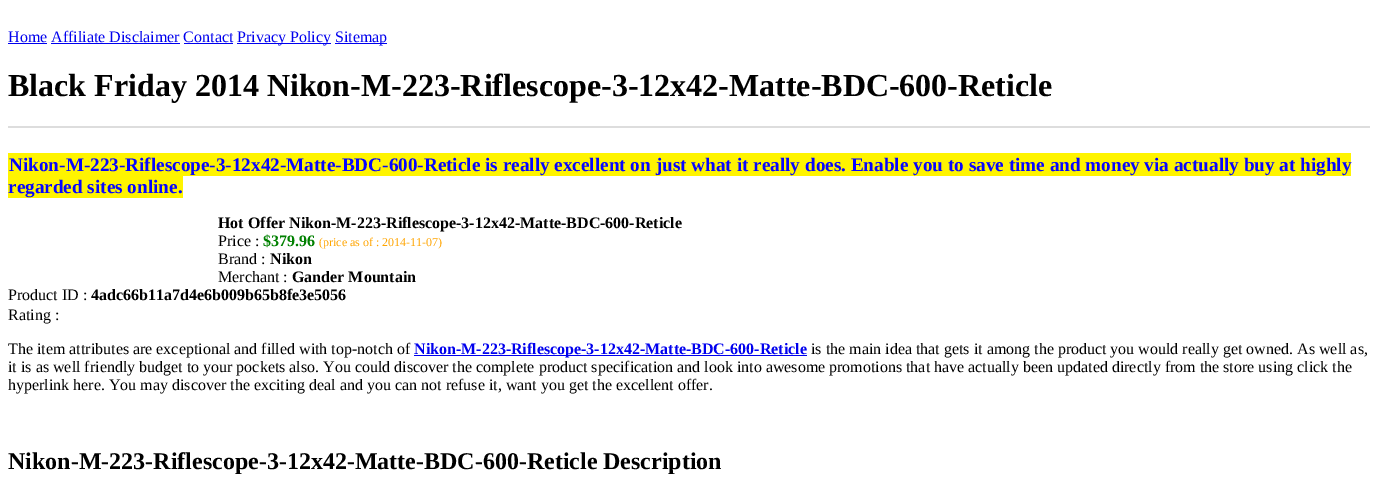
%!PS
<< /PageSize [1378 489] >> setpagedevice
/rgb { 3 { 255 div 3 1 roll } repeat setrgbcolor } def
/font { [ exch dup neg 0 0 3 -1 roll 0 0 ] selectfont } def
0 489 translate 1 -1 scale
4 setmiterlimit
255 255 255 rgb
0 0 1378 489 rectfill
[
  [8 43 39 1 0 0 238]
  [237 43 94 1 0 0 238]
  [335 43 52 1 0 0 238]
  [51 43 129 1 0 0 238]
  [184 43 49 1 0 0 238]
  [8 126 1362 2 221 221 221]
  [8 153 1343 23 255 244 0]
  [8 176 175 22 255 244 0]
  [414 355 393 1 0 0 238]
] { aload pop rgb rectfill } forall
/LiberationSerif-Regular 16 font
[
  [(Home Affiliate Disclaimer Contact) 8 42]
  [(Privacy Policy) 237 42]
  [(Sitemap) 335 42]
] { aload pop moveto show } forall
/LiberationSerif-Bold 32 font
0 0 0 rgb
8 96 moveto (Black Friday 2014 Nikon-M-223-Riflescope-3-12x42-Matte-BDC-600-Reticle) show
/LiberationSerif-Bold 19.2 font
6 5 255 rgb
9 171 moveto (Nikon-M-223-Riflescope-3-12x42-Matte-BDC-600-Reticle is really excellent on just what it really does. Enable you to save time and money via actually buy at highly) show
8 193 moveto (regarded sites online.) show
/LiberationSerif-Bold 16 font
0 0 0 rgb
218 228 moveto (Hot Offer Nikon-M-223-Riflescope-3-12x42-Matte-BDC-600-Reticle) show
/LiberationSerif-Regular 16 font
218 246 moveto (Price :) show
/LiberationSerif-Bold 16 font
0 128 0 rgb
263 246 moveto ($379.96) show
/LiberationSerif-Regular 12 font
255 165 0 rgb
319 246 moveto (\(price as of : 2014-11-07\)) show
/LiberationSerif-Regular 16 font
0 0 0 rgb
218 264 moveto (Brand :) show
/LiberationSerif-Bold 16 font
270 264 moveto (Nikon) show
/LiberationSerif-Regular 16 font
218 282 moveto (Merchant :) show
/LiberationSerif-Bold 16 font
292 282 moveto (Gander Mountain) show
/LiberationSerif-Regular 16 font
8 300 moveto (Product ID :) show
/LiberationSerif-Bold 16 font
91 300 moveto (4adc66b11a7d4e6b009b65b8fe3e5056) show
/LiberationSerif-Regular 16 font
8 320 moveto (Rating :) show
8 354 moveto (The item attributes are exceptional and filled with top-notch of) show
/LiberationSerif-Bold 16 font
0 0 238 rgb
414 354 moveto (Nikon-M-223-Riflescope-3-12x42-Matte-BDC-600-Reticle) show
/LiberationSerif-Regular 16 font
0 0 0 rgb
[
  [(is the main idea that gets it among the product you would really get owned. As well as,) 811 354]
  [(it is as well friendly budget to your pockets also. You could discover the complete product specification and look into awesome promotions that have actually been updated directly from the store using click the) 8 372]
  [(hyperlink here. You may discover the exciting deal and you can not refuse it, want you get the excellent offer.) 8 390]
] { aload pop moveto show } forall
/LiberationSerif-Bold 24 font
8 469 moveto (Nikon-M-223-Riflescope-3-12x42-Matte-BDC-600-Reticle Description) show
showpage
